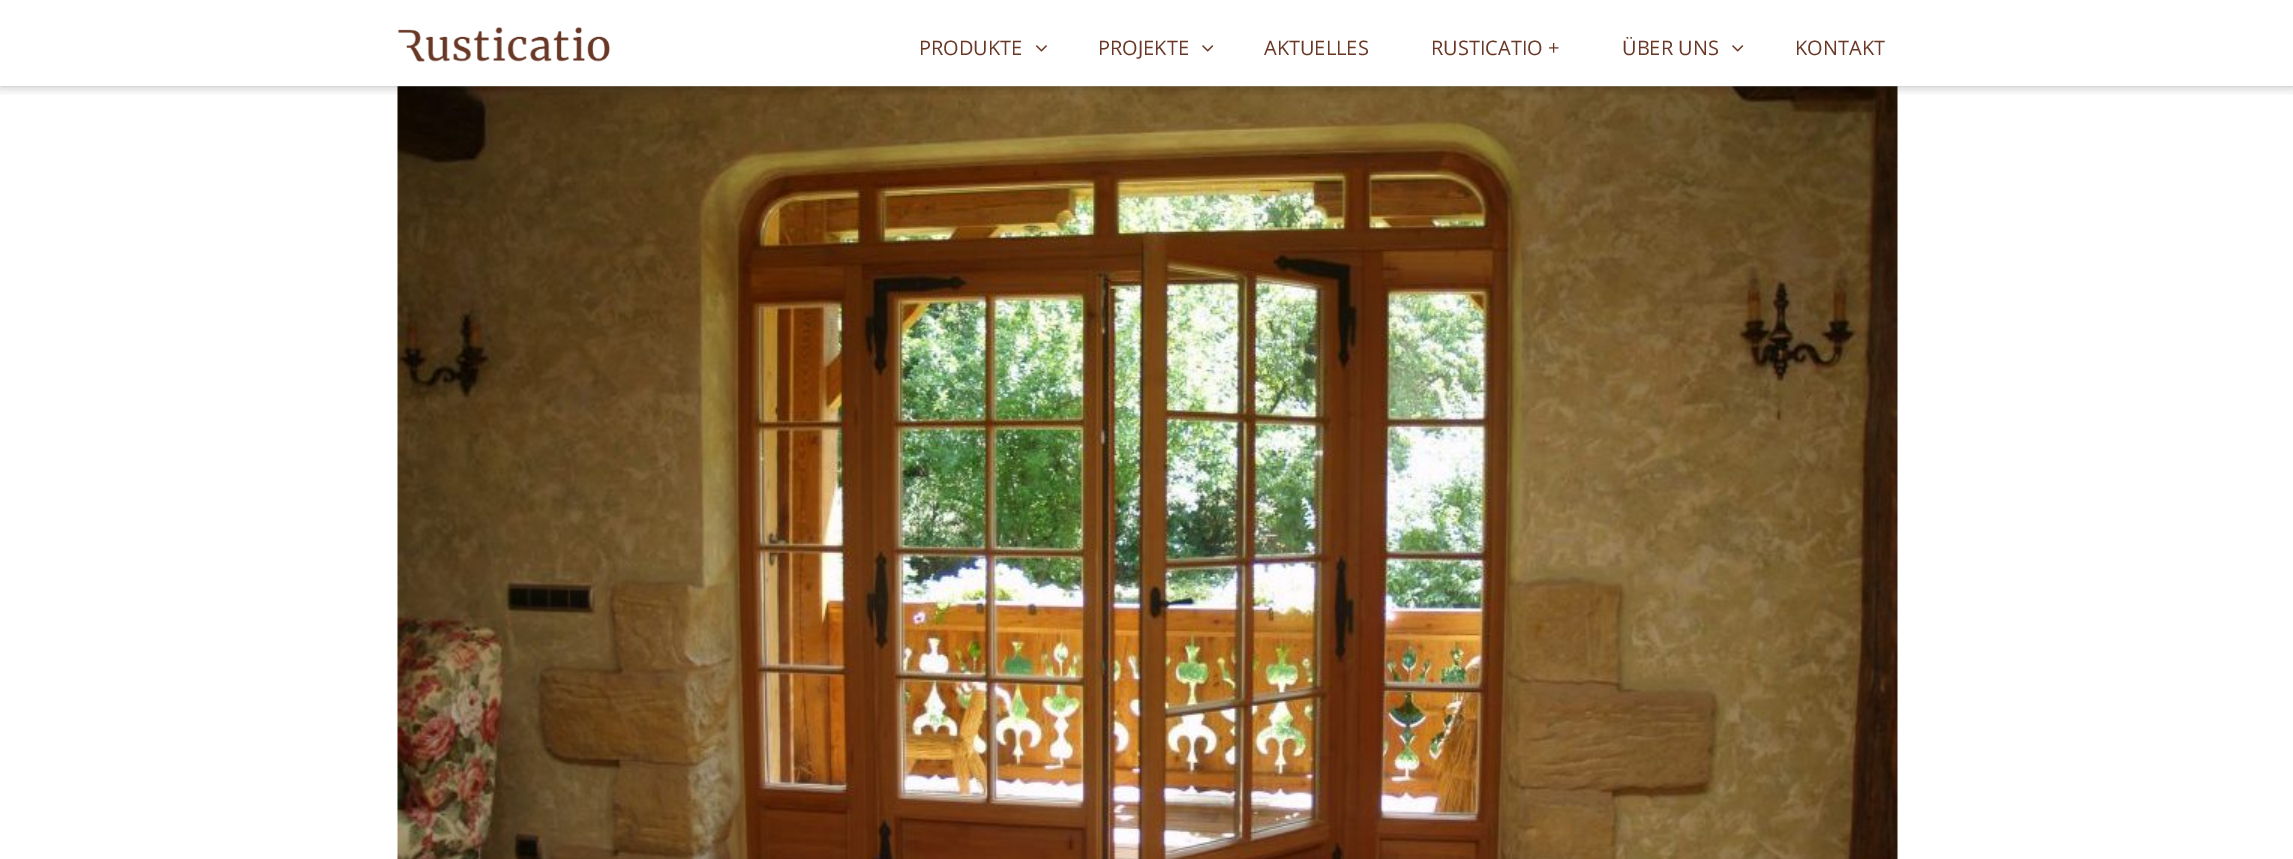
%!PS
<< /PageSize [2293 859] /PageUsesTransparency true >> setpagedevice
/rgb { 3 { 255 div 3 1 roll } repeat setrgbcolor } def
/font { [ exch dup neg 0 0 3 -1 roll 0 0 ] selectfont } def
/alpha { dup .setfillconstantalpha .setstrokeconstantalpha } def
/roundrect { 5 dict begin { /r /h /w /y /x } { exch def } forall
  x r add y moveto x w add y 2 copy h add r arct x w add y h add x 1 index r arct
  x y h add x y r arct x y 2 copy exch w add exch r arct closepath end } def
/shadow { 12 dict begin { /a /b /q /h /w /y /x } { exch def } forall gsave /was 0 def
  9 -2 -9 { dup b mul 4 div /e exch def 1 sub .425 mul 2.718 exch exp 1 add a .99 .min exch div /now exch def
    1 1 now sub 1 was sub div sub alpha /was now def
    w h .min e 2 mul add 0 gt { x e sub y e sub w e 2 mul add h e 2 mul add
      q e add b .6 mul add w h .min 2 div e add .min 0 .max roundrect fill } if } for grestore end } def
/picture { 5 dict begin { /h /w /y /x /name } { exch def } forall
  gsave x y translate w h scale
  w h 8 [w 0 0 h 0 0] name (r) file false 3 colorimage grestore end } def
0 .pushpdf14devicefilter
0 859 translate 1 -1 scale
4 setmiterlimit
255 255 255 rgb
0 0 2293 859 rectfill
(img/4.rgb) 397 86 1501 773 picture
gsave
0 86 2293 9 rectclip
0 0 0 rgb
0 0 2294 86 0 6 0.3 shadow
grestore
(img/1.rgb) 397 27 213 35 picture
(img/2.rgb) 1035 45 12 7 picture
(img/3.rgb) 1202 45 12 7 picture
(img/3.rgb) 1732 45 12 7 picture
/OpenSans-Regular 20 font
105 55 38 rgb
[
  [(PRODUKTE) 919 55]
  [(PROJEKTE) 1098 55]
  [(AKTUELLES) 1264 55]
  [(RUSTICATIO +) 1431 55]
  [(ÜBER UNS) 1622 55]
  [(KONTAKT) 1795 55]
] { aload pop moveto show } forall
.poppdf14devicefilter showpage
